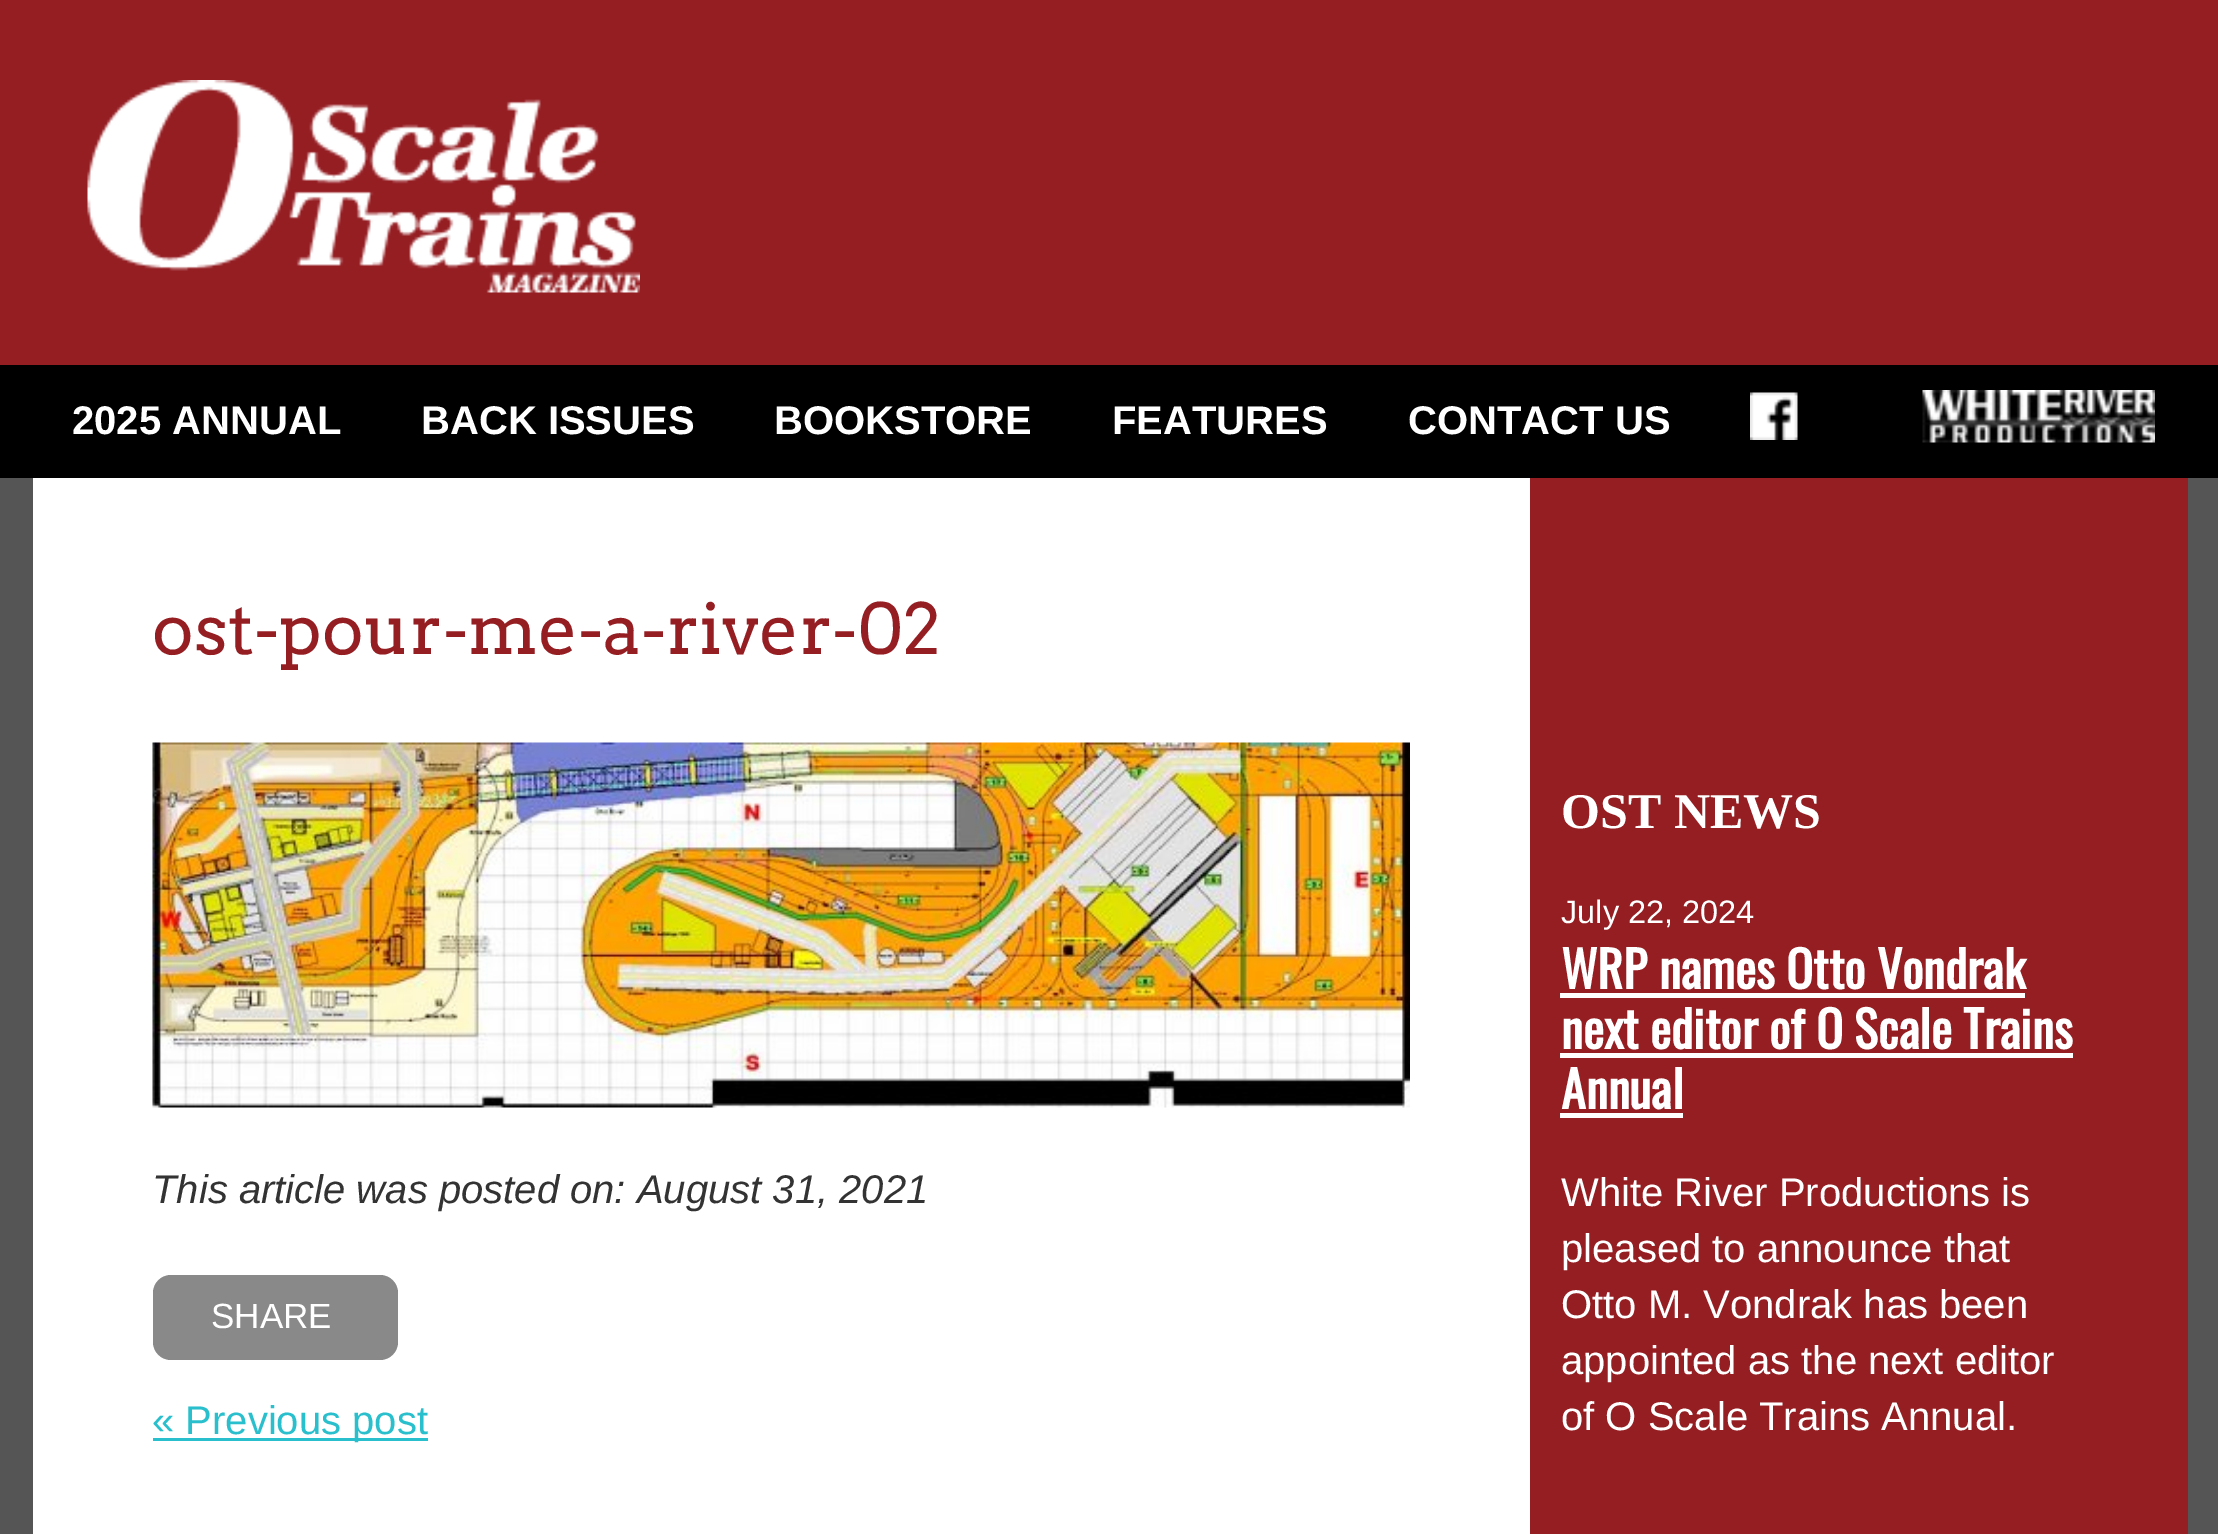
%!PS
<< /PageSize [2218 1534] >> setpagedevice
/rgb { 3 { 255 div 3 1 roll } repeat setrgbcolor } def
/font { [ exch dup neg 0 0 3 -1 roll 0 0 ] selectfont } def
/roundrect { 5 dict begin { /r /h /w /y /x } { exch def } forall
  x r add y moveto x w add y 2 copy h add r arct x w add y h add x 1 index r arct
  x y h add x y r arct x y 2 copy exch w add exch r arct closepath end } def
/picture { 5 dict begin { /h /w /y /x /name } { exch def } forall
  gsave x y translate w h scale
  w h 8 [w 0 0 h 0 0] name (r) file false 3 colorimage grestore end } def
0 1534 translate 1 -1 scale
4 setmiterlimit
85 85 85 rgb
0 0 2218 1534 rectfill
149 30 35 rgb
0 0 2218 365 rectfill
(img/1.rgb) 87 80 553 213 picture
0 0 0 rgb
0 365 2218 113 rectfill
(img/2.rgb) 1750 392 48 48 picture
(img/3.rgb) 1922 390 233 53 picture
149 30 35 rgb
1530 478 658 1056 rectfill
255 255 255 rgb
33 478 1497 1056 rectfill
(img/4.rgb) 152 742 1258 366 picture
137 137 137 rgb
153 1275 245 85 18 roundrect fill
[
  [153 1438 275 3 42 191 204]
  [1560 993 465 5 255 255 255]
  [1560 1053 513 5 255 255 255]
  [1560 1113 123 5 255 255 255]
] { aload pop rgb rectfill } forall
/LiberationSans-Bold 40 font
[
  [(2025 ANNUAL) 72 434]
  [(BACK ISSUES) 421 434]
  [(BOOKSTORE) 774 434]
  [(FEATURES) 1112 434]
  [(CONTACT US) 1408 434]
] { aload pop moveto show } forall
/Arvo-Regular 70 font
149 30 35 rgb
152 654 moveto (ost-pour-me-a-river-02) show
/LiberationSans-Italic 40 font
51 51 51 rgb
152 1203 moveto (This article was posted on: August 31, 2021) show
/LiberationSans-Regular 35 font
255 255 255 rgb
211 1328 moveto (SHARE) show
/LiberationSans-Regular 40 font
42 191 204 rgb
152 1434 moveto (« Previous post) show
/LiberationSerif-Bold 50 font
255 255 255 rgb
1561 828 moveto (OST NEWS) show
/LiberationSans-Regular 32.5 font
1561 923 moveto (July 22, 2024) show
/Oswald-Bold 50 font
[
  [(WRP names Otto Vondrak) 1561 989]
  [(next editor of O Scale Trains) 1561 1049]
  [(Annual) 1561 1109]
] { aload pop moveto show } forall
/LiberationSans-Regular 40 font
[
  [(White River Productions is) 1561 1206]
  [(pleased to announce that) 1561 1262]
  [(Otto M. Vondrak has been) 1561 1318]
  [(appointed as the next editor) 1561 1374]
  [(of O Scale Trains Annual.) 1561 1430]
] { aload pop moveto show } forall
showpage
